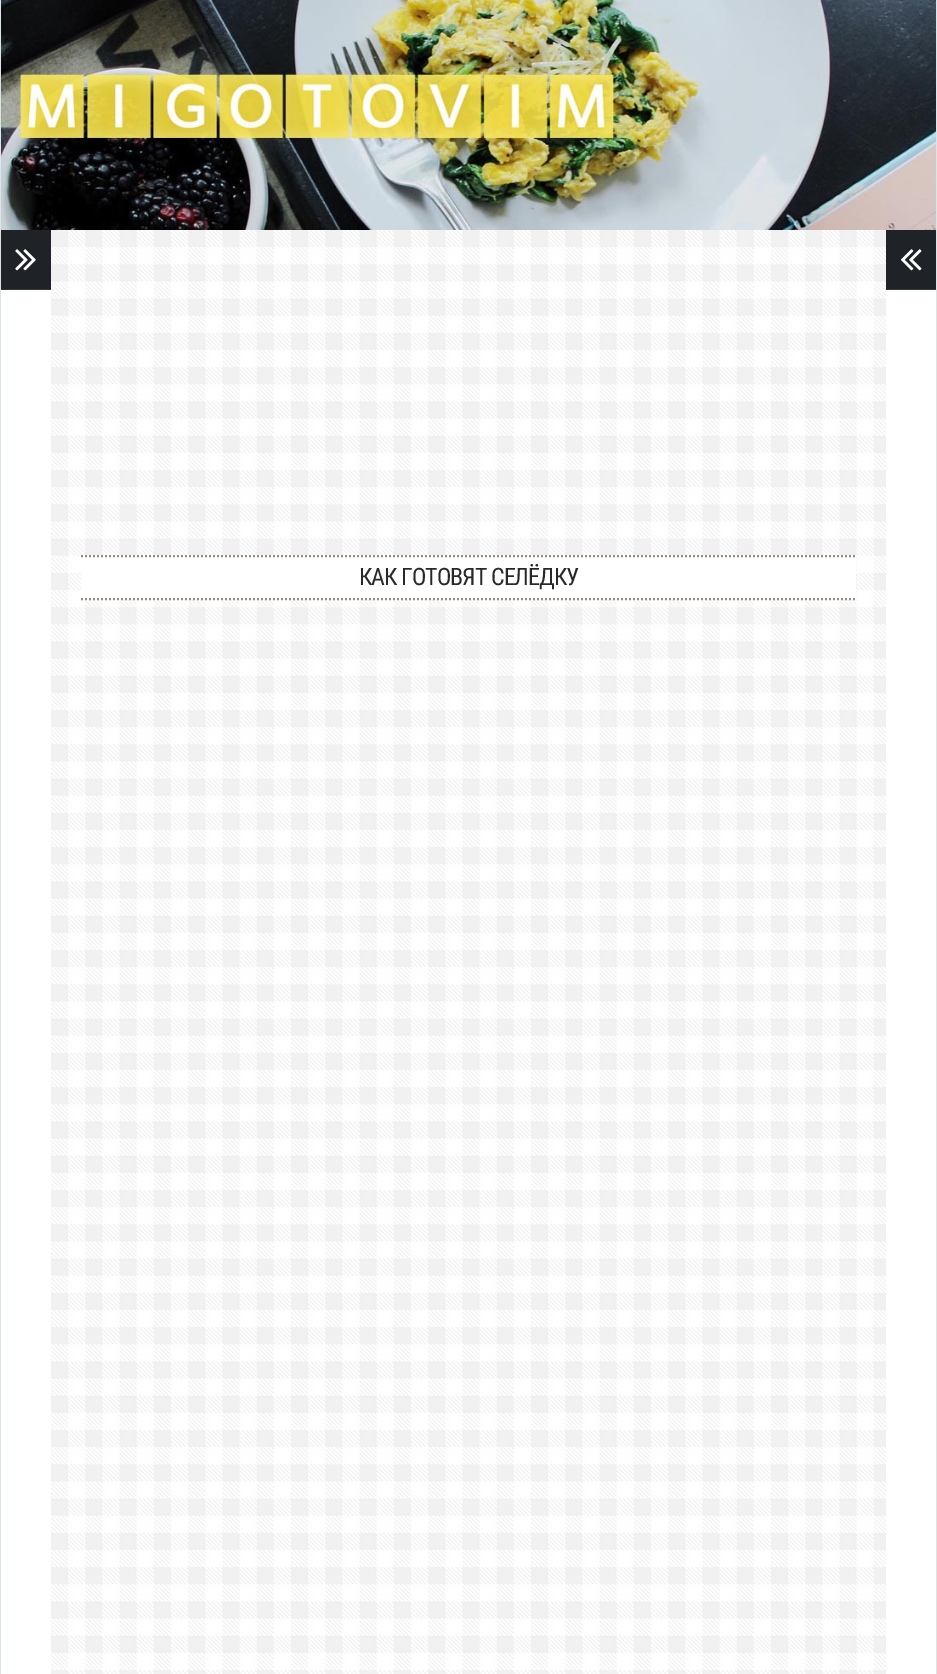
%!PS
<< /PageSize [937 1674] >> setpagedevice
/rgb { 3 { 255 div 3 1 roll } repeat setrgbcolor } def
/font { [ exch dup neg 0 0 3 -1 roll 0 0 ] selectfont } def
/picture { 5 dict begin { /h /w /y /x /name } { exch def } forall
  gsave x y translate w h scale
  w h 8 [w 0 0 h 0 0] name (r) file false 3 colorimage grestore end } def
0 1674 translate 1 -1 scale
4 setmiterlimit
255 255 255 rgb
0 0 937 1674 rectfill
220 228 230 rgb
936 0 1 1674 rectfill
0 0 1 1674 rectfill
(img/1.rgb) 1 0 935 230 picture
31 35 39 rgb
1 230 50 59 rectfill
53 57 61 rgb
1 289 50 1 rectfill
(img/2.rgb) 15 249 21 22 picture
31 35 39 rgb
886 230 50 59 rectfill
53 57 61 rgb
886 289 50 1 rectfill
(img/3.rgb) 901 249 21 22 picture
(img/4.rgb) 51 230 835 1444 picture
255 255 255 rgb
81 555 775 45 rectfill
152 139 123 rgb
2 setlinewidth
[2 2] 0 setdash
81 556 moveto 856 556 lineto stroke
81 599 moveto 856 599 lineto stroke
/RobotoCondensed-Regular 24 font
40 40 40 rgb
359 585 moveto -1 0 (КАК ГОТОВЯТ СЕЛЁДКУ) ashow
showpage
